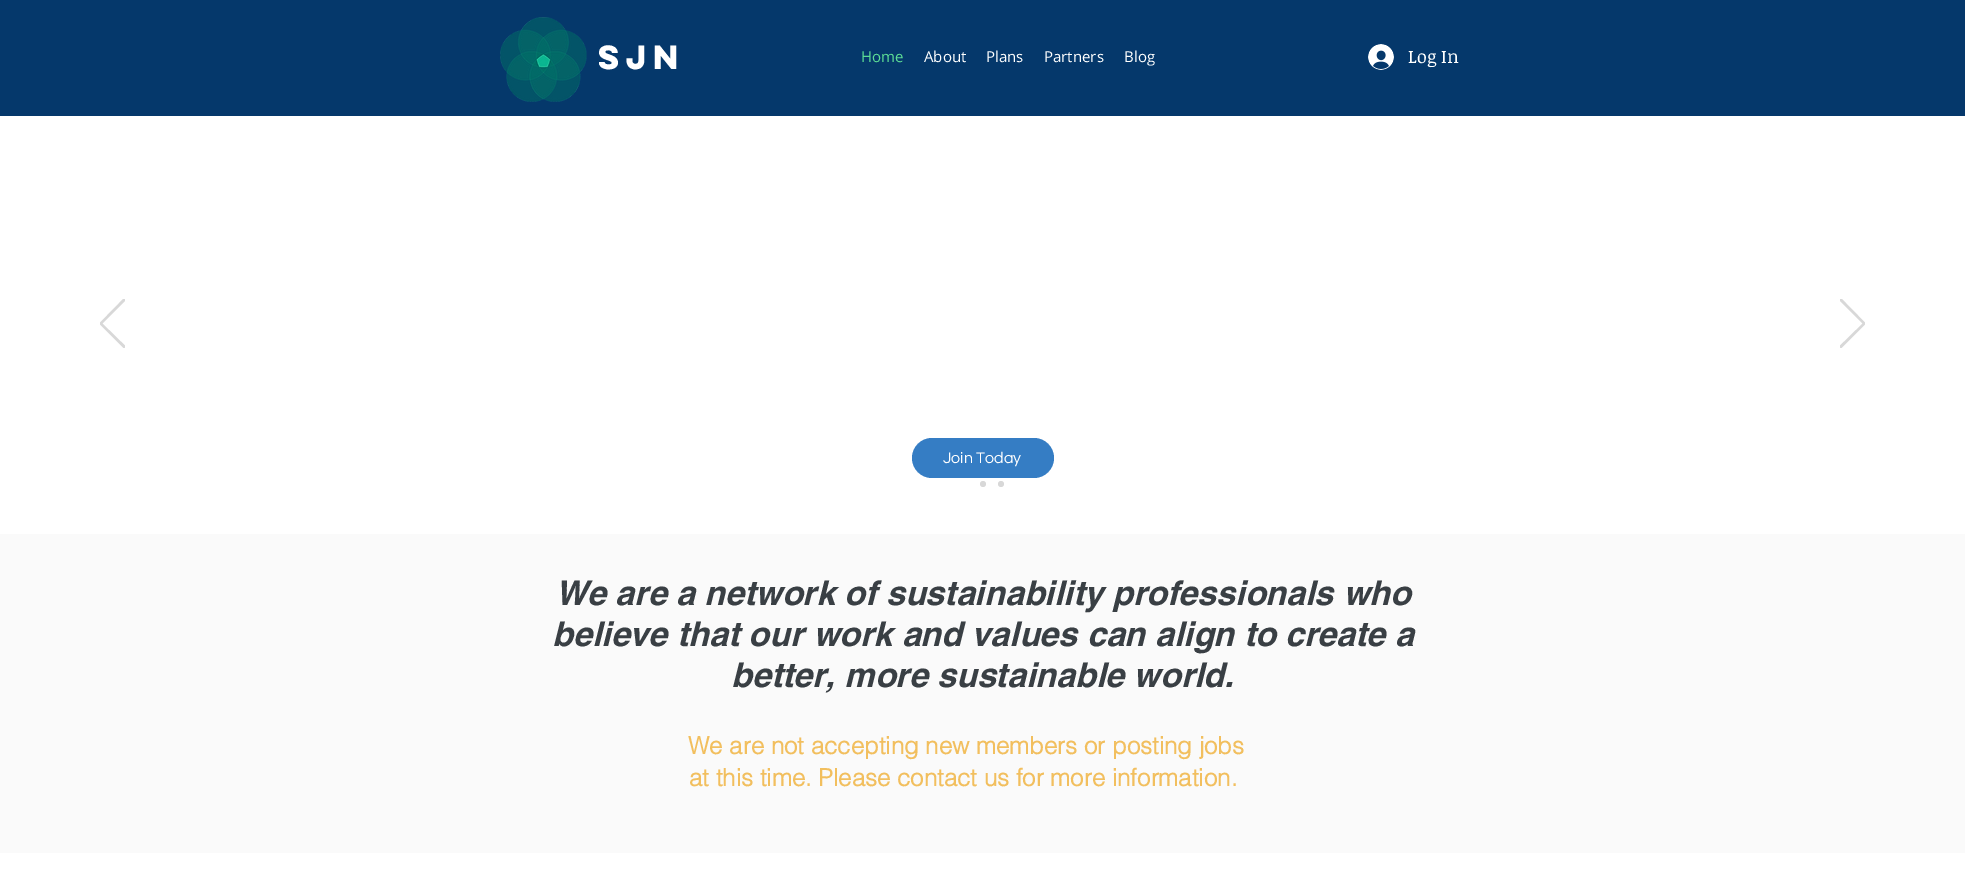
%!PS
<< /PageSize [1965 880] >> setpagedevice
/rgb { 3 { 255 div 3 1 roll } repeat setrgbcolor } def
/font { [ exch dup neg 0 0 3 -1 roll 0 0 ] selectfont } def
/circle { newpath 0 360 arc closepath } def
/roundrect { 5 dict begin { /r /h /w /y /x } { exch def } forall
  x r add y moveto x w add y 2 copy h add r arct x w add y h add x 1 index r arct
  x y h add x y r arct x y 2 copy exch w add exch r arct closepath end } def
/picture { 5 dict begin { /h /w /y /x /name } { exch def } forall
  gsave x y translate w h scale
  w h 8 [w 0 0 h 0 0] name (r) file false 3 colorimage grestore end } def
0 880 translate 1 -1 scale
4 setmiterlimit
255 255 255 rgb
0 0 1965 880 rectfill
5 56 107 rgb
0 0 1965 116 rectfill
(img/1.rgb) 500 17 87 85 picture
(img/2.rgb) 1368 44 26 26 picture
gsave
100 299 25 49 rectclip
216 216 216 rgb
1.2 setlinewidth
124 347.5 moveto 100 323.5 lineto 124 299 lineto 125 300 lineto 101.5 323.5 lineto 125 346.5 lineto closepath stroke
grestore
gsave
1840 299 25 49 rectclip
216 216 216 rgb
1.2 setlinewidth
1841 347.5 moveto 1865 323.5 lineto 1841 299 lineto 1840 300 lineto 1863.5 323.5 lineto 1840 346.5 lineto closepath stroke
grestore
53 125 196 rgb
912 438 142 40 20 roundrect fill
216 216 216 rgb
983 484 3 circle fill
1001 484 3 circle fill
250 250 250 rgb
0 534 1965 319 rectfill
/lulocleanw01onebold-Bold 30 font
255 255 255 rgb
598 69 moveto (Sjn) show
/OpenSans-Regular 15 font
92 219 149 rgb
861 62 moveto (Home) show
255 255 255 rgb
[
  [(About) 924 62]
  [(Plans) 986 62]
  [(Partners) 1044 62]
  [(Blog) 1124 62]
] { aload pop moveto show } forall
/NoticiaText-Regular 18 font
1408 63 moveto (Log In) show
/Questrial-Regular 16 font
943 463 moveto (Join Today) show
/helvetica-BoldItalic 34 font
57 63 68 rgb
[
  [(We are a network of sustainability professionals who) 555 605]
  [(believe that our work and values can align to create a) 552 646]
  [(better, more sustainable world.) 731 687]
] { aload pop moveto show } forall
/helvetica-Bold 24 font
242 191 94 rgb
688 754 moveto (We are not accepting new members or posting jobs) show
689 786 moveto (at this time. Please contact us for more information.) show
showpage
